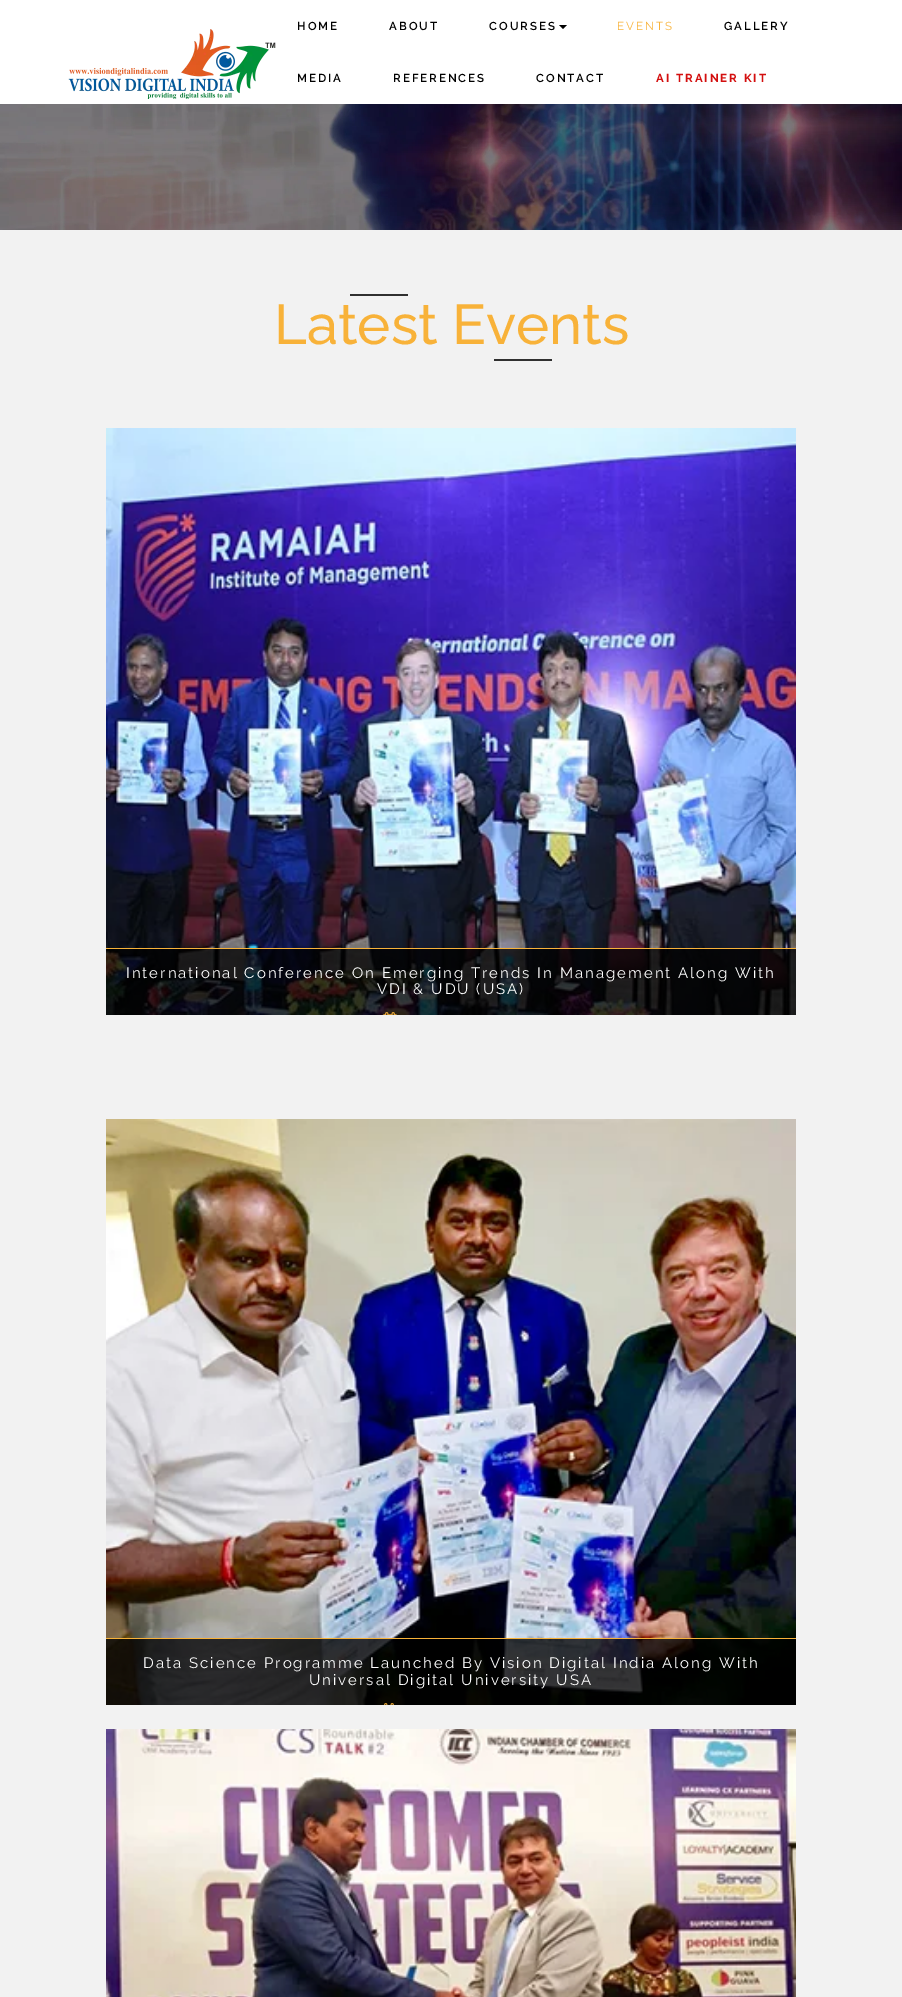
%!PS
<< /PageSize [902 1997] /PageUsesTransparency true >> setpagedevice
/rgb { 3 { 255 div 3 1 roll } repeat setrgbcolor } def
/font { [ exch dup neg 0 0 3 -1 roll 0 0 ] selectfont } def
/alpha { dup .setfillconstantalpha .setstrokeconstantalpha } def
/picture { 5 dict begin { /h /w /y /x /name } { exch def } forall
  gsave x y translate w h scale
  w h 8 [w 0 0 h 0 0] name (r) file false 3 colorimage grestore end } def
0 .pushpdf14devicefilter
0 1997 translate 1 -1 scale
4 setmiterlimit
255 255 255 rgb
0 0 902 1997 rectfill
(img/1.rgb) 0 104 902 126 picture
(img/2.rgb) 68 29 208 70 picture
0 0 0 rgb
559 25 moveto 567 25 lineto 563 29 lineto closepath fill
[
  [0 230 902 1767 242 242 242]
  [350 294 58 2 48 48 48]
  [494 359 58 2 48 48 48]
] { aload pop rgb rectfill } forall
(img/3.rgb) 106 428 690 587 picture
0.78 alpha
0 0 0 rgb
106 949 690 66 rectfill
1 alpha
248 178 57 rgb
106 948 690 1 rectfill
(img/4.rgb) 383 1012 14 3 picture
(img/5.rgb) 106 1119 690 586 picture
0.78 alpha
0 0 0 rgb
106 1639 690 66 rectfill
1 alpha
248 178 57 rgb
106 1638 690 1 rectfill
(img/6.rgb) 384 1703 10 2 picture
(img/7.rgb) 106 1729 690 268 picture
/Raleway-SemiBold 11.5 font
0 0 0 rgb
297 30 moveto 2 0 (HOME) ashow
389 30 moveto 2 0 (ABOUT) ashow
489 30 moveto 2 0 (COURSES) ashow
/Raleway-Regular 11.5 font
248 178 57 rgb
617 30 moveto 2 0 (EVENTS) ashow
/Raleway-SemiBold 11.5 font
0 0 0 rgb
724 30 moveto 2 0 (GALLERY) ashow
297 82 moveto 2 0 (MEDIA) ashow
393 82 moveto 2 0 (REFERENCES) ashow
536 82 moveto 2 0 (CONTACT) ashow
/Raleway-Bold 11.5 font
211 15 15 rgb
656 82 moveto 2 0 (AI TRAINER KIT) ashow
/Raleway-Medium 56 font
248 178 57 rgb
274 344 moveto (Latest Events) show
/Raleway-Regular 15 font
255 255 255 rgb
126 978 moveto 2 0 (International Conference On Emerging Trends In Management Along With) ashow
377 994 moveto 2 0 (VDI & UDU \(USA\)) ashow
143 1668 moveto 2 0 (Data Science Programme Launched By Vision Digital India Along With) ashow
309 1685 moveto 2 0 (Universal Digital University USA) ashow
.poppdf14devicefilter showpage
